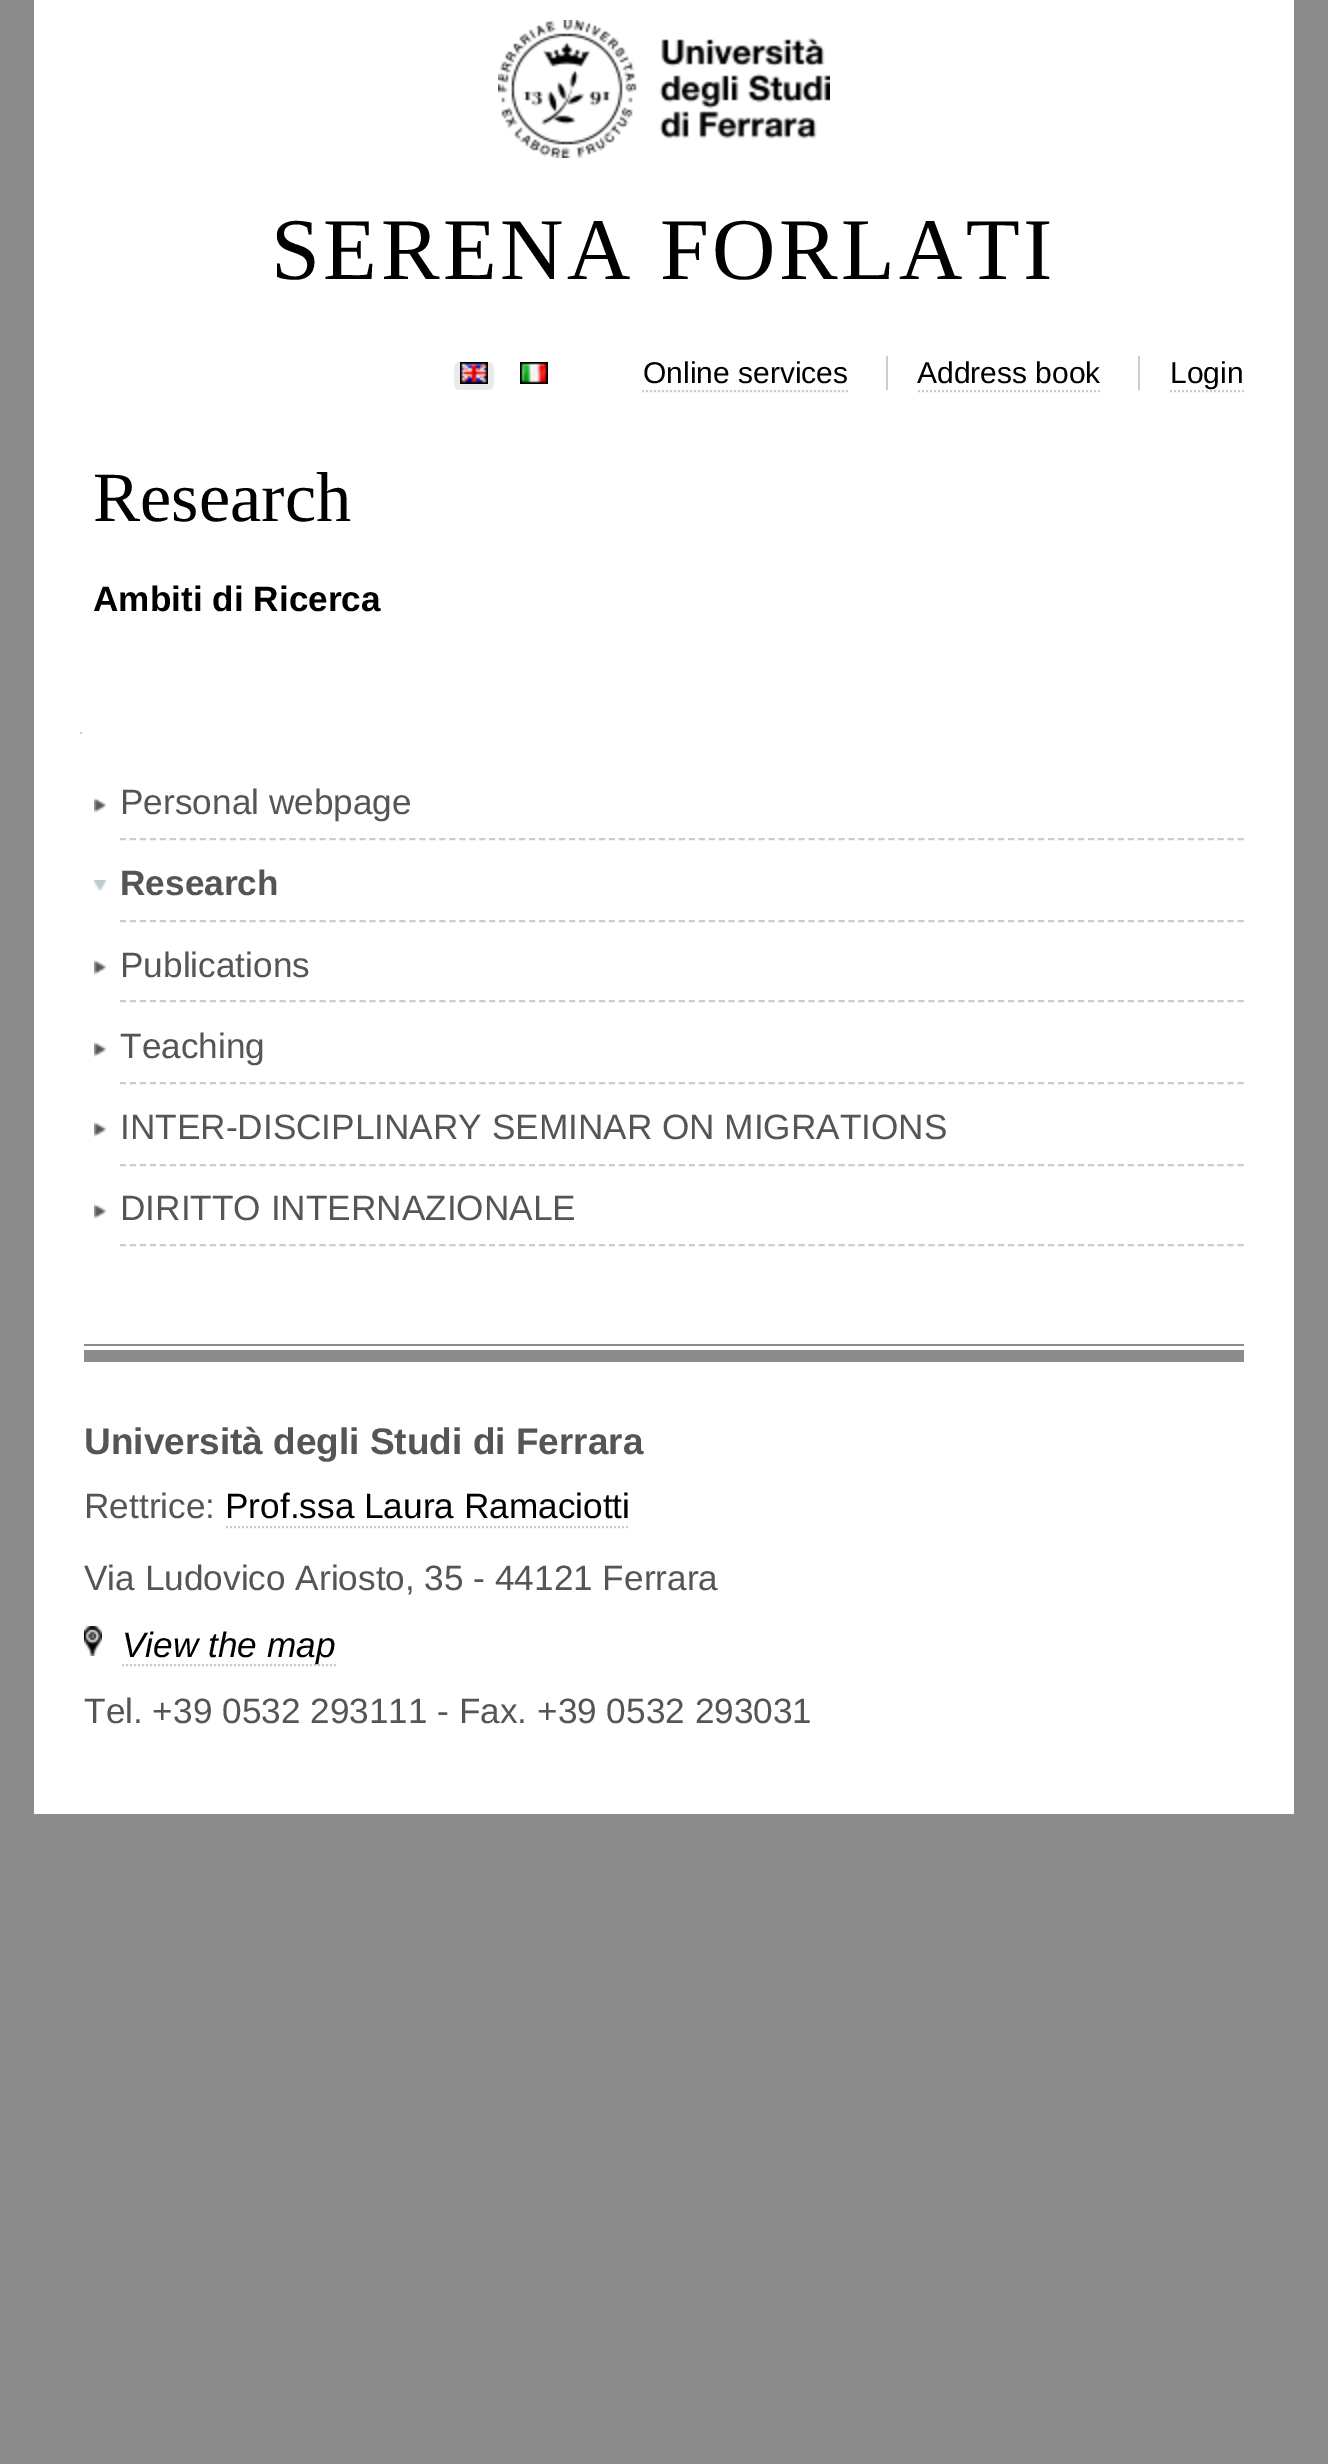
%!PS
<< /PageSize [1328 2464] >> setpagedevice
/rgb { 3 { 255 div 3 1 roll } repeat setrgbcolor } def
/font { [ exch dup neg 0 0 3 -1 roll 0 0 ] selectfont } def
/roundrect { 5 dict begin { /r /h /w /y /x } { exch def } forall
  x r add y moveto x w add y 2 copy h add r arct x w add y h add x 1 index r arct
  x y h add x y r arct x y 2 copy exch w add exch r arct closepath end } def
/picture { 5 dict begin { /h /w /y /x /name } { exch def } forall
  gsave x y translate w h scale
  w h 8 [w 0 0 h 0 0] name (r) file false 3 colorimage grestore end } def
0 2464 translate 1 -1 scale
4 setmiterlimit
140 140 140 rgb
0 0 1328 2464 rectfill
255 255 255 rgb
34 0 1260 1814 rectfill
(img/1.rgb) 498 20 332 138 picture
234 234 234 rgb
454 362 40 28 6 roundrect fill
(img/2.rgb) 460 362 28 22 picture
(img/3.rgb) 520 362 28 22 picture
204 204 204 rgb
2 setlinewidth
[2 2] 0 setdash
642 391 moveto 848 391 lineto stroke
886 356 2 34 rectfill
918 391 moveto 1100 391 lineto stroke
1138 356 2 34 rectfill
1170 391 moveto 1244 391 lineto stroke
80 732 2 2 rectfill
[6 3.98] 0 setdash
120 839 moveto 1244 839 lineto stroke
(img/4.rgb) 94 798 12 15 picture
120 921 moveto 1244 921 lineto stroke
(img/5.rgb) 94 880 12 11 picture
120 1001 moveto 1244 1001 lineto stroke
(img/4.rgb) 94 960 12 15 picture
120 1083 moveto 1244 1083 lineto stroke
(img/4.rgb) 94 1042 12 15 picture
120 1165 moveto 1244 1165 lineto stroke
(img/4.rgb) 94 1122 12 15 picture
120 1245 moveto 1244 1245 lineto stroke
(img/4.rgb) 94 1204 12 15 picture
140 140 140 rgb
84 1344 1160 2 rectfill
84 1350 1160 12 rectfill
204 204 204 rgb
[2 2] 0 setdash
226 1527 moveto 630 1527 lineto stroke
(img/6.rgb) 84 1626 18 30 picture
122 1665 moveto 336 1665 lineto stroke
/LiberationSerif-Regular 88 font
0 0 0 rgb
271 279 moveto 3.5 0 (SERENA FORLATI) ashow
/LiberationSans-Regular 30 font
[
  [(Online services) 643 383]
  [(Address book) 917 383]
  [(Login) 1170 383]
] { aload pop moveto show } forall
/LiberationSerif-Regular 70.5 font
93 521 moveto (Research) show
/LiberationSans-Bold 35.2 font
93 611 moveto (Ambiti di Ricerca) show
/LiberationSans-Regular 35.2 font
85 85 85 rgb
120 814 moveto (Personal webpage) show
/LiberationSans-Bold 35.2 font
120 895 moveto (Research) show
/LiberationSans-Regular 35.2 font
[
  [(Publications) 120 977]
  [(Teaching) 120 1058]
  [(INTER-DISCIPLINARY SEMINAR ON MIGRATIONS) 120 1139]
  [(DIRITTO INTERNAZIONALE) 120 1220]
] { aload pop moveto show } forall
/LiberationSans-Bold 37 font
84 1454 moveto (Università degli Studi di Ferrara) show
/LiberationSans-Regular 35.2 font
84 1518 moveto (Rettrice:) show
0 0 0 rgb
225 1518 moveto (Prof.ssa Laura Ramaciotti) show
85 85 85 rgb
84 1590 moveto (Via Ludovico Ariosto, 35 - 44121 Ferrara) show
/LiberationSans-Italic 35.2 font
0 0 0 rgb
122 1657 moveto (View the map) show
/LiberationSans-Regular 35.2 font
85 85 85 rgb
84 1723 moveto (Tel. +39 0532 293111 - Fax. +39 0532 293031) show
showpage
